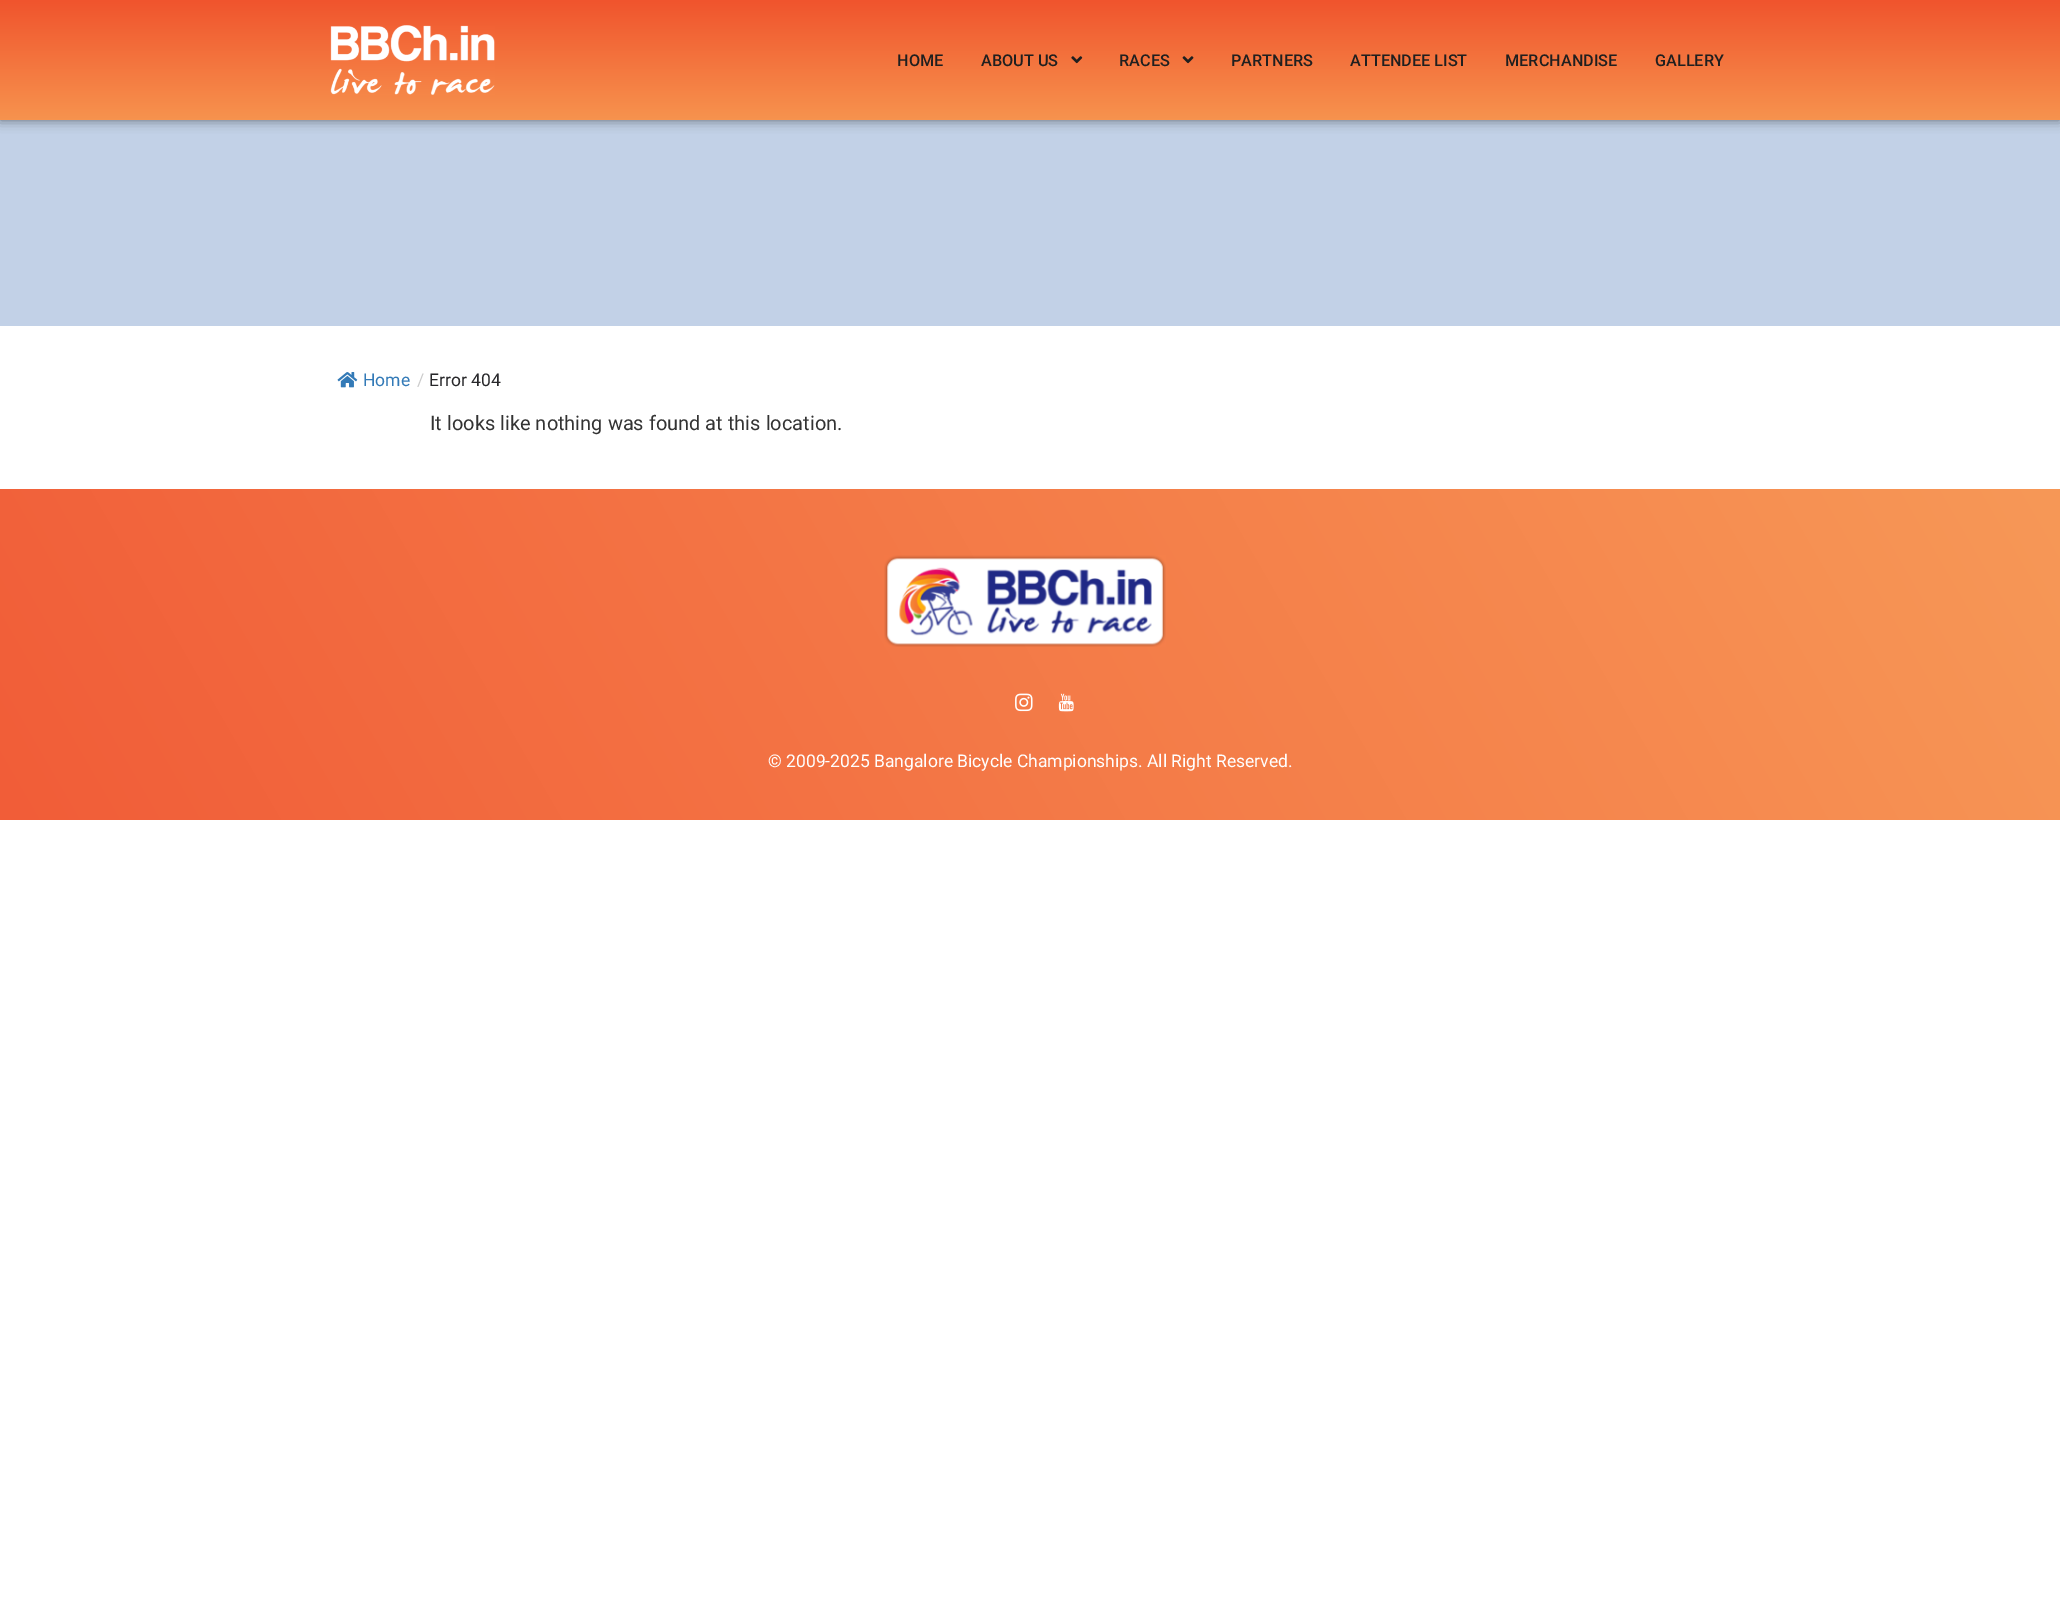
%!PS
<< /PageSize [2060 1615] /PageUsesTransparency true >> setpagedevice
/rgb { 3 { 255 div 3 1 roll } repeat setrgbcolor } def
/font { [ exch dup neg 0 0 3 -1 roll 0 0 ] selectfont } def
/alpha { dup .setfillconstantalpha .setstrokeconstantalpha } def
/roundrect { 5 dict begin { /r /h /w /y /x } { exch def } forall
  x r add y moveto x w add y 2 copy h add r arct x w add y h add x 1 index r arct
  x y h add x y r arct x y 2 copy exch w add exch r arct closepath end } def
/shadow { 12 dict begin { /a /b /q /h /w /y /x } { exch def } forall gsave /was 0 def
  9 -2 -9 { dup b mul 4 div /e exch def 1 sub .425 mul 2.718 exch exp 1 add a .99 .min exch div /now exch def
    1 1 now sub 1 was sub div sub alpha /was now def
    w h .min e 2 mul add 0 gt { x e sub y e sub w e 2 mul add h e 2 mul add
      q e add b .6 mul add w h .min 2 div e add .min 0 .max roundrect fill } if } for grestore end } def
/picture { 5 dict begin { /h /w /y /x /name } { exch def } forall
  gsave x y translate w h scale
  w h 8 [w 0 0 h 0 0] name (r) file false 3 colorimage grestore end } def
0 .pushpdf14devicefilter
0 1615 translate 1 -1 scale
4 setmiterlimit
255 255 255 rgb
0 0 2060 1615 rectfill
194 209 231 rgb
0 120 2060 206 rectfill
0 0 0 rgb
0 0 2060 120 0 6 0.5 shadow
gsave 0 0 moveto 2060 0 lineto 2060 120 lineto 0 120 lineto closepath clip newpath
<< /ShadingType 2 /ColorSpace /DeviceRGB /Coords [1030 0 1030 120] /Extend [true true] /Function << /FunctionType 2 /Domain [0 1] /C0 [0.941 0.329 0.176] /C1 [0.969 0.576 0.306] /N 1 >> >> shfill grestore
(img/1.rgb) 330 25 165 70 picture
(img/2.rgb) 1071 56 12 8 picture
(img/3.rgb) 1182 56 12 8 picture
(img/4.rgb) 337 372 21 16 picture
gsave 0 489 moveto 2060 489 lineto 2060 820 lineto 0 820 lineto closepath clip newpath
<< /ShadingType 2 /ColorSpace /DeviceRGB /Coords [1874 167 186 1142] /Extend [true true] /Function << /FunctionType 2 /Domain [0 1] /C0 [0.969 0.596 0.341] /C1 [0.945 0.365 0.22] /N 1 >> >> shfill grestore
(img/5.rgb) 884 555 282 92 picture
(img/6.rgb) 1015 693 18 19 picture
(img/7.rgb) 1058 693 16 19 picture
/Roboto-Medium 16.25 font
32 31 31 rgb
[
  [(HOME) 897 66]
  [(ABOUT US) 981 66]
  [(RACES) 1119 66]
  [(PARTNERS) 1231 66]
  [(ATTENDEE LIST) 1350 66]
  [(MERCHANDISE) 1505 66]
  [(GALLERY) 1655 66]
] { aload pop moveto show } forall
/Roboto-Regular 17.5 font
51 122 183 rgb
363 386 moveto (Home) show
204 204 204 rgb
417 386 moveto (/) show
39 39 42 rgb
429 386 moveto (Error 404) show
/Roboto-Regular 20 font
51 51 51 rgb
430 430 moveto (It looks like nothing was found at this location.) show
/Roboto-Regular 17.5 font
255 255 255 rgb
768 767 moveto (© 2009-2025 Bangalore Bicycle Championships. All Right Reserved.) show
.poppdf14devicefilter showpage
